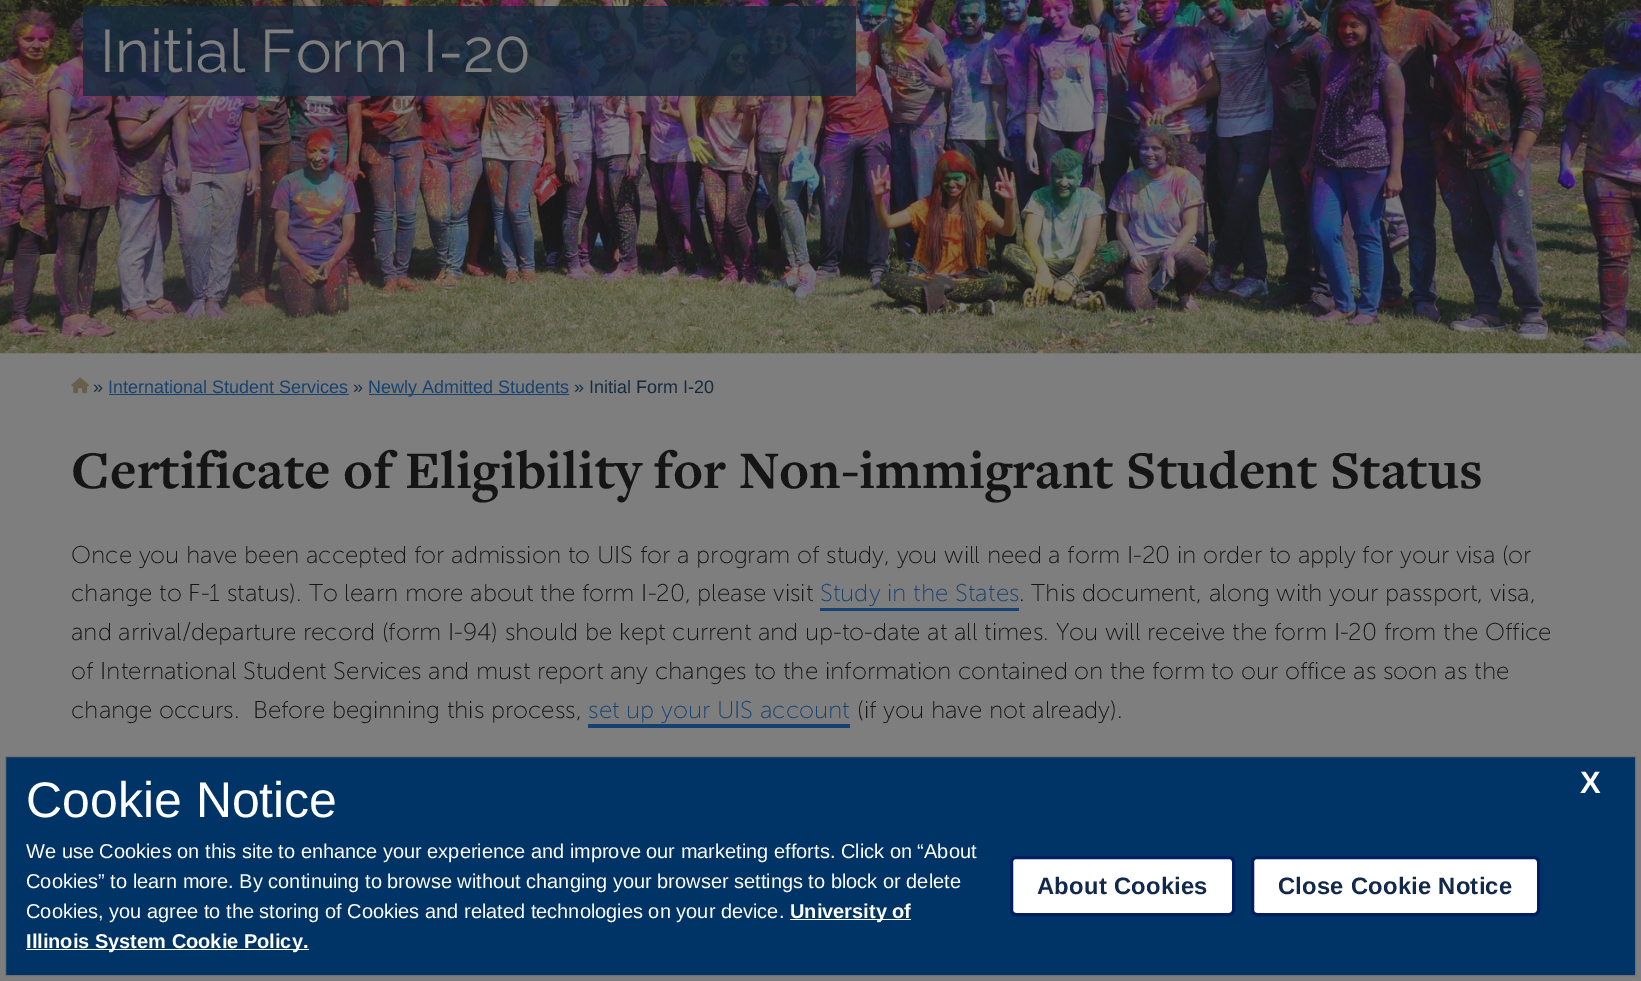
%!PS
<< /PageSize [1641 981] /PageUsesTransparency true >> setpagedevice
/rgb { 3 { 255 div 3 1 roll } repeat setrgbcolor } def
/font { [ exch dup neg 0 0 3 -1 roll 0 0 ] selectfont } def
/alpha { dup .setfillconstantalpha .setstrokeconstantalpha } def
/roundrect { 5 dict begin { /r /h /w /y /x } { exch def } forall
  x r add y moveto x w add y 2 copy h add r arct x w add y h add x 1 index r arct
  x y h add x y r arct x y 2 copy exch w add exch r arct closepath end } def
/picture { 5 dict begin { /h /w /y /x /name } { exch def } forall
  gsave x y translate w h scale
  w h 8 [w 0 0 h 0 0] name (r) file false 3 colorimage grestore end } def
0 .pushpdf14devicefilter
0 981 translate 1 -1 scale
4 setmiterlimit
126 126 126 rgb
0 0 1641 981 rectfill
(img/1.rgb) 0 0 1641 354 picture
0.8 alpha
21 42 63 rgb
83 6 773 90 rectfill
1 alpha
(img/2.rgb) 71 377 18 17 picture
[
  [109 394 240 1 21 66 113]
  [369 394 200 1 21 66 113]
  [820 608 199 3 21 66 113]
  [588 724 262 4 21 66 113]
] { aload pop rgb rectfill } forall
0 51 102 rgb
5.5 756.5 moveto 1635.5 756.5 lineto 1635.5 975.5 lineto 5.5 975.5 lineto closepath gsave fill grestore
112 112 112 rgb
stroke
255 255 255 rgb
790 919 121 1 rectfill
26 949 283 1 rectfill
1011.5 857.5 222 57 4.5 roundrect gsave fill grestore
0 30 98 rgb
3 setlinewidth
stroke
255 255 255 rgb
1252.5 857.5 286 57 4.5 roundrect gsave fill grestore
0 30 98 rgb
stroke
/Raleway-Regular 60 font
126 126 126 rgb
100 72 moveto (Initial Form I-20) show
/LiberationSans-Regular 18 font
21 42 63 rgb
93 393 moveto (») show
21 66 113 rgb
108 393 moveto (International Student Services) show
21 42 63 rgb
353 393 moveto (») show
21 66 113 rgb
368 393 moveto (Newly Admitted Students) show
21 42 63 rgb
574 393 moveto (» Initial Form I-20) show
/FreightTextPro-Bold 55 font
21 21 21 rgb
71 488 moveto (Certificate of Eligibility for Non-immigrant Student Status) show
/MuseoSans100-Light 24.2 font
71 563 moveto (Once you have been accepted for admission to UIS for a program of study, you will need a form I-20 in order to apply for your visa \(or) show
71 601 moveto (change to F-1 status\). To learn more about the form I-20, please visit) show
21 66 113 rgb
820 601 moveto (Study in the States) show
21 21 21 rgb
[
  [(. This document, along with your passport, visa,) 1019 601]
  [(and arrival/departure record \(form I-94\) should be kept current and up-to-date at all times. You will receive the form I-20 from the Office) 71 640]
  [(of International Student Services and must report any changes to the information contained on the form to our office as soon as the) 71 679]
  [(change occurs.  Before beginning this process,) 71 718]
] { aload pop moveto show } forall
21 66 113 rgb
588 718 moveto (set up your UIS account) show
21 21 21 rgb
857 718 moveto (\(if you have not already\).) show
/LiberationSans-Regular 50 font
255 255 255 rgb
26 817 moveto (Cookie Notice) show
/LiberationSans-Bold 31 font
1580 793 moveto (X) show
/LiberationSans-Regular 20 font
[
  [(We use Cookies on this site to enhance your experience and improve our marketing efforts. Click on “About) 26 858]
  [(Cookies” to learn more. By continuing to browse without changing your browser settings to block or delete) 26 888]
  [(Cookies, you agree to the storing of Cookies and related technologies on your device.) 26 918]
] { aload pop moveto show } forall
/LiberationSans-Bold 20 font
790 918 moveto (University of) show
26 948 moveto (Illinois System Cookie Policy.) show
/LiberationSans-Bold 23.75 font
19 41 75 rgb
1037 894 moveto 0.25 0 (About Cookies) ashow
1278 894 moveto 0.25 0 (Close Cookie Notice) ashow
.poppdf14devicefilter showpage
